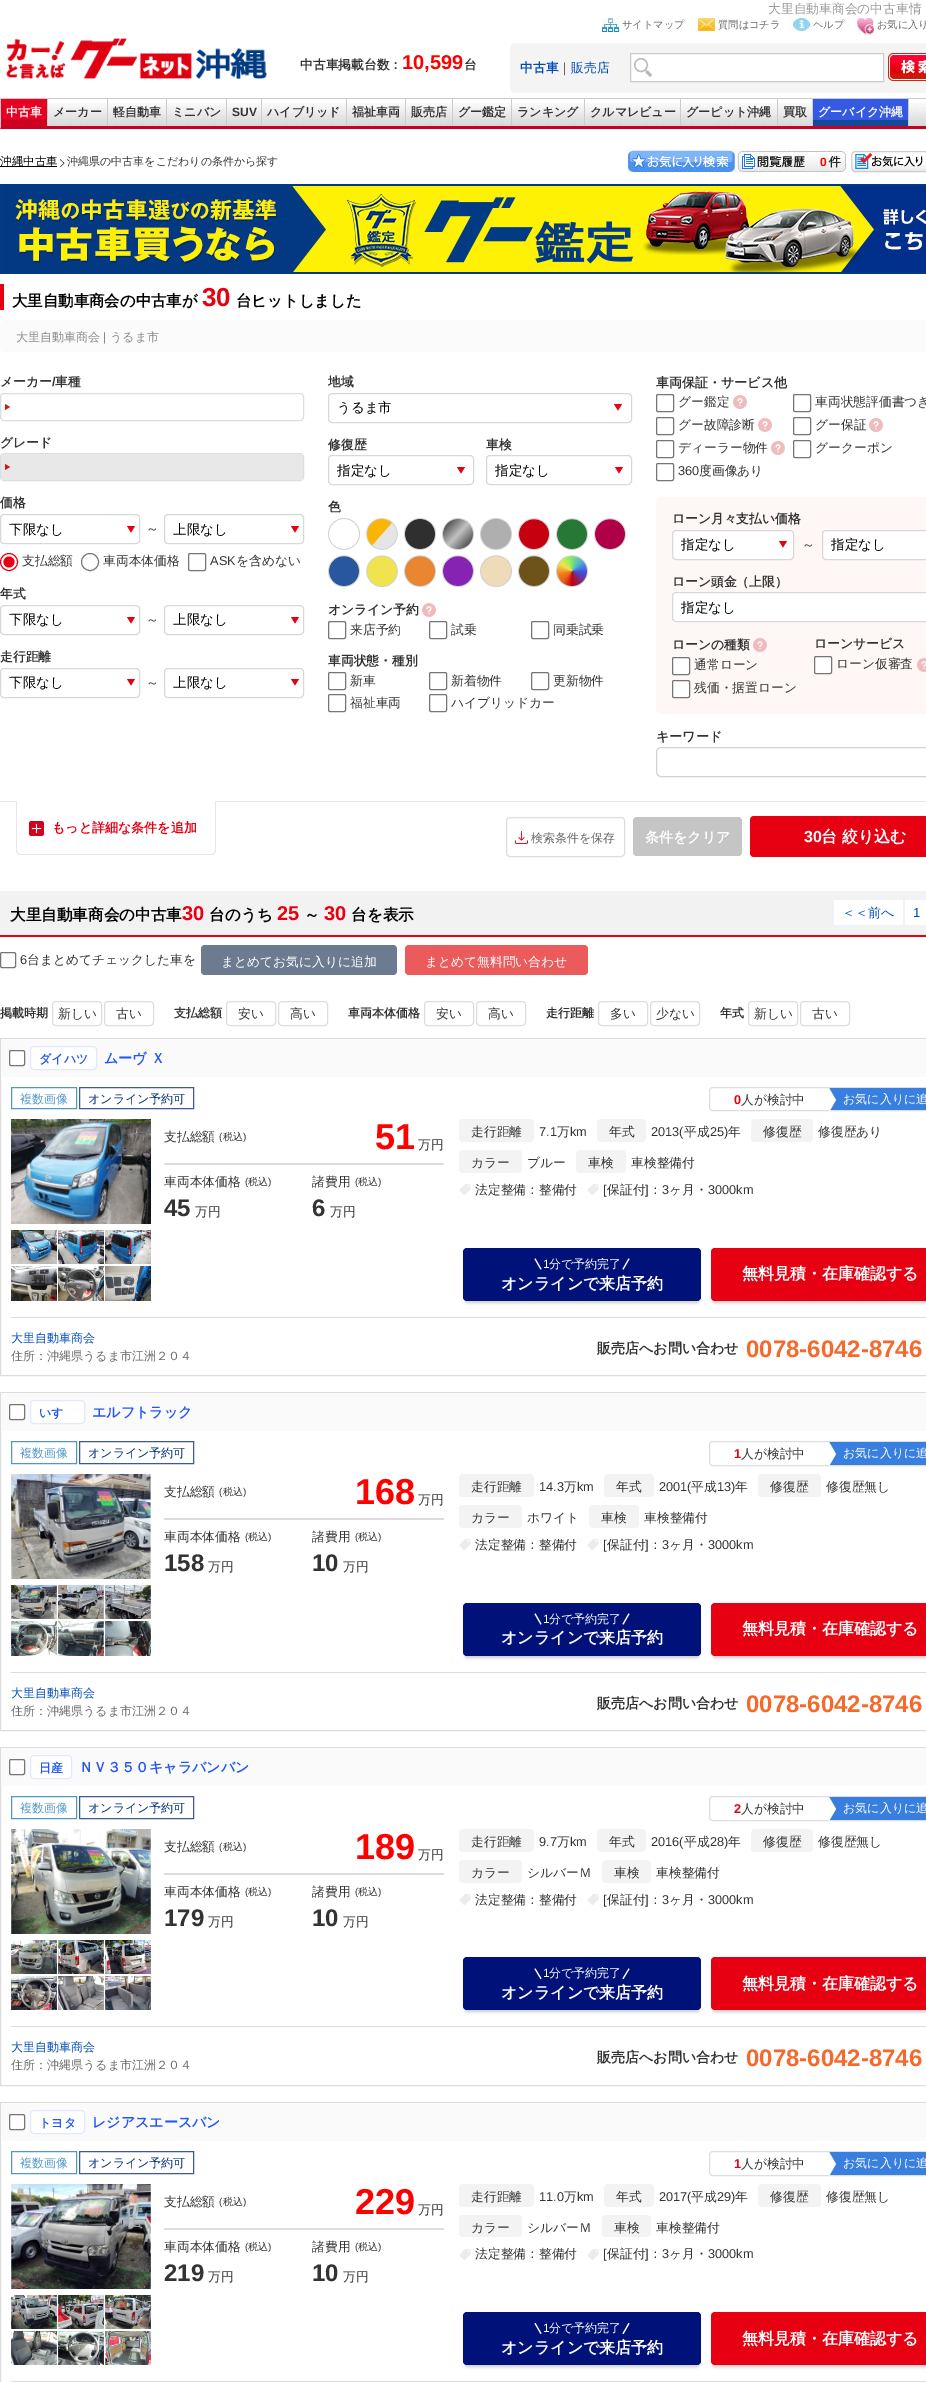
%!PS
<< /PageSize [926 2382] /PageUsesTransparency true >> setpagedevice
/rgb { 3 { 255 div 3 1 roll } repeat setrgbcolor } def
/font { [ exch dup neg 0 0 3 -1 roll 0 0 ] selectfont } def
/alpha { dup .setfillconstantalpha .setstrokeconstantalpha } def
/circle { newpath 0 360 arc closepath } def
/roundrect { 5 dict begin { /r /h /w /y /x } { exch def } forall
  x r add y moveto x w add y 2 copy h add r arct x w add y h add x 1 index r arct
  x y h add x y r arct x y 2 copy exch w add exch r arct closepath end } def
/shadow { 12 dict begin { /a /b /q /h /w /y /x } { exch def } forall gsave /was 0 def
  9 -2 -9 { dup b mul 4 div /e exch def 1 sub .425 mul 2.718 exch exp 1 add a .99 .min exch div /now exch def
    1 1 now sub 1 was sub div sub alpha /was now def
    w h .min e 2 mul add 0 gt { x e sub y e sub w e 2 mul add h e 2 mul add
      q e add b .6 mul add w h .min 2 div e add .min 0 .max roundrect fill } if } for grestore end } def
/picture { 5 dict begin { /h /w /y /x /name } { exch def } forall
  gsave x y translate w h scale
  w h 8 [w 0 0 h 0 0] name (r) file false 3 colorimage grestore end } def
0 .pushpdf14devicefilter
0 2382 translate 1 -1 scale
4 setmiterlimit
255 255 255 rgb
0 0 926 2382 rectfill
(img/1.rgb) 6 38 261 42 picture
(img/2.rgb) 602 18 17 14 picture
(img/3.rgb) 698 18 17 13 picture
(img/4.rgb) 793 18 17 13 picture
(img/5.rgb) 857 18 17 17 picture
244 244 244 rgb
510 43 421 50 5 roundrect fill
255 255 255 rgb
631 54 252 27 rectfill
(img/6.rgb) 634 58 18 19 picture
204 204 204 rgb
630.5 53.5 253 28 rectstroke
(img/7.rgb) 888 53 38 28 picture
(img/8.rgb) 0 103 926 26 picture
0 98 926 1 rectfill
200 1 34 rgb
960 129 moveto 0 129 lineto 1 126 lineto 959 126 lineto closepath fill
204 204 204 rgb
0 129 moveto 0 98 lineto 1 99 lineto 1 126 lineto closepath fill
(img/9.rgb) 1 99 46 27 picture
[
  [47 99 1 27 204 204 204]
  [107 99 1 27 204 204 204]
  [166 99 1 27 204 204 204]
  [226 99 1 27 204 204 204]
  [261 99 1 27 204 204 204]
  [346 99 1 27 204 204 204]
  [405 99 1 27 204 204 204]
  [452 99 1 27 204 204 204]
  [511 99 1 27 204 204 204]
  [584 99 1 27 204 204 204]
  [680 99 1 27 204 204 204]
  [777 99 1 27 204 204 204]
  [812 99 1 27 204 204 204]
] { aload pop rgb rectfill } forall
(img/10.rgb) 813 99 95 27 picture
908 99 1 27 rectfill
0 0 0 rgb
0 166 57 1 rectfill
(img/11.rgb) 60 159 5 8 picture
(img/12.rgb) 627 149 110 24 picture
(img/13.rgb) 737 149 110 24 picture
(img/14.rgb) 850 149 76 24 picture
(img/15.rgb) 0 184 926 90 picture
230 0 18 rgb
0 284 4 26 rectfill
251 251 251 rgb
0 320 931 32 5 roundrect fill
215 22 24 rgb
10 407 moveto 5 410 lineto 5 404 lineto closepath fill
221 221 221 rgb
0.5 393.5 303 27 3.5 roundrect stroke
0.5 453.5 303 27 3.5 roundrect stroke
232 232 232 rgb
1 454 302 26 rectfill
215 22 24 rgb
10 467 moveto 5 470 lineto 5 464 lineto closepath fill
230 0 18 rgb
135 526 moveto 131 532.5 lineto 127 526 lineto closepath eofill
216 216 216 rgb
0.5 514.5 139 29 3.5 roundrect stroke
230 0 18 rgb
299 526 moveto 295 532.5 lineto 291 526 lineto closepath eofill
216 216 216 rgb
164.5 514.5 139 29 3.5 roundrect stroke
230 0 18 rgb
9 562 8.5 circle stroke
9 562 5.5 circle fill
118 118 118 rgb
90 562 8.5 circle stroke
188.5 553.5 17 17 1.5 roundrect stroke
230 0 18 rgb
135 617 moveto 131 623.5 lineto 127 617 lineto closepath eofill
216 216 216 rgb
0.5 605.5 139 29 3.5 roundrect stroke
230 0 18 rgb
299 617 moveto 295 623.5 lineto 291 617 lineto closepath eofill
216 216 216 rgb
164.5 605.5 139 29 3.5 roundrect stroke
230 0 18 rgb
135 679 moveto 131 685.5 lineto 127 679 lineto closepath eofill
216 216 216 rgb
0.5 668.5 139 29 3.5 roundrect stroke
230 0 18 rgb
299 679 moveto 295 685.5 lineto 291 679 lineto closepath eofill
216 216 216 rgb
164.5 668.5 139 29 3.5 roundrect stroke
230 0 18 rgb
622 404 moveto 618 410.5 lineto 614 404 lineto closepath eofill
216 216 216 rgb
328.5 393.5 303 29 3.5 roundrect stroke
230 0 18 rgb
465 467 moveto 461 473.5 lineto 457 467 lineto closepath eofill
216 216 216 rgb
328.5 455.5 145 29 3.5 roundrect stroke
230 0 18 rgb
623 467 moveto 619 473.5 lineto 615 467 lineto closepath eofill
216 216 216 rgb
486.5 455.5 145 29 3.5 roundrect stroke
(img/16.rgb) 328 518 32 32 picture
(img/17.rgb) 366 518 32 32 picture
(img/18.rgb) 404 518 32 32 picture
(img/19.rgb) 442 518 32 32 picture
(img/20.rgb) 480 518 32 32 picture
(img/21.rgb) 518 518 32 32 picture
(img/22.rgb) 556 518 32 32 picture
(img/23.rgb) 594 518 32 32 picture
(img/24.rgb) 328 555 32 32 picture
(img/25.rgb) 366 555 32 32 picture
(img/26.rgb) 404 555 32 32 picture
(img/27.rgb) 442 555 32 32 picture
(img/28.rgb) 480 555 32 32 picture
(img/29.rgb) 518 555 32 32 picture
(img/30.rgb) 556 555 32 32 picture
(img/31.rgb) 422 603 14 14 picture
118 118 118 rgb
328.5 621.5 17 17 1.5 roundrect stroke
429.5 621.5 17 17 1.5 roundrect stroke
531.5 621.5 17 17 1.5 roundrect stroke
328.5 672.5 17 17 1.5 roundrect stroke
429.5 672.5 17 17 1.5 roundrect stroke
531.5 672.5 17 17 1.5 roundrect stroke
328.5 694.5 17 17 1.5 roundrect stroke
429.5 694.5 17 17 1.5 roundrect stroke
656.5 394.5 17 17 1.5 roundrect stroke
(img/31.rgb) 733 395 14 14 picture
793.5 394.5 17 17 1.5 roundrect stroke
656.5 417.5 17 17 1.5 roundrect stroke
(img/31.rgb) 758 418 14 14 picture
793.5 417.5 17 17 1.5 roundrect stroke
(img/31.rgb) 869 418 14 14 picture
656.5 440.5 17 17 1.5 roundrect stroke
(img/31.rgb) 771 441 14 14 picture
793.5 440.5 17 17 1.5 roundrect stroke
656.5 463.5 17 17 1.5 roundrect stroke
255 247 246 rgb
656 497 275 217 5 roundrect fill
255 255 255 rgb
672 530 122 30 4 roundrect fill
230 0 18 rgb
787 541 moveto 783 547.5 lineto 779 541 lineto closepath eofill
216 216 216 rgb
672.5 530.5 121 29 3.5 roundrect stroke
255 255 255 rgb
822.5 530.5 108 29 3.5 roundrect gsave fill grestore
216 216 216 rgb
stroke
255 255 255 rgb
672.5 592.5 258 29 3.5 roundrect gsave fill grestore
216 216 216 rgb
stroke
(img/32.rgb) 753 638 14 14 picture
255 255 255 rgb
672.5 657.5 17 17 1.5 roundrect gsave fill grestore
118 118 118 rgb
stroke
255 255 255 rgb
672.5 680.5 17 17 1.5 roundrect gsave fill grestore
118 118 118 rgb
stroke
255 255 255 rgb
814.5 656.5 17 17 1.5 roundrect gsave fill grestore
118 118 118 rgb
stroke
(img/33.rgb) 917 658 9 14 picture
210 210 210 rgb
656.5 747.5 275 29 4.5 roundrect stroke
232 232 232 rgb
0 801 926 1 rectfill
255 255 255 rgb
16 801 moveto 216 801 lineto 216 850 lineto 216 853 214 855 211 855 curveto 21 855 lineto 18 855 16 853 16 850 curveto closepath fill
232 232 232 rgb
16 801 moveto 216 801 lineto 216 850 lineto 216 853 214 855 211 855 curveto 21 855 lineto 18 855 16 853 16 850 curveto closepath 17 801 moveto 215 801 lineto 215 850 lineto 215 852 213 854 211 854 curveto 21 854 lineto 19 854 17 852 17 850 curveto closepath eofill
(img/34.rgb) 29 821 15 15 picture
(img/35.rgb) 515 831 13 13 picture
221 221 221 rgb
506.5 817.5 118 39 3.5 roundrect stroke
197 197 197 rgb
633 817 109 39 4 roundrect fill
230 0 18 rgb
750 816 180 41 4 roundrect fill
[
  [0 891 926 44 242 242 242]
  [0 935 926 2 231 0 16]
  [834 900 69 25 255 255 255]
  [905 900 21 25 255 255 255]
] { aload pop rgb rectfill } forall
118 118 118 rgb
0.5 952.5 15 15 1.5 roundrect stroke
108 123 144 rgb
201 945 196 30 4 roundrect fill
235 91 91 rgb
405 945 183 30 4 roundrect fill
221 221 221 rgb
52.5 1001.5 49 24 3.5 roundrect stroke
104.5 1001.5 49 24 3.5 roundrect stroke
226.5 1001.5 49 24 3.5 roundrect stroke
278.5 1001.5 49 24 3.5 roundrect stroke
424.5 1001.5 49 24 3.5 roundrect stroke
476.5 1001.5 49 24 3.5 roundrect stroke
598.5 1001.5 49 24 3.5 roundrect stroke
650.5 1001.5 49 24 3.5 roundrect stroke
748.5 1001.5 49 24 3.5 roundrect stroke
800.5 1001.5 49 24 3.5 roundrect stroke
(img/37.rgb) 11 1230 46 34 picture
(img/38.rgb) 58 1230 46 34 picture
(img/39.rgb) 105 1230 46 34 picture
(img/40.rgb) 11 1266 46 35 picture
(img/41.rgb) 58 1266 46 35 picture
(img/42.rgb) 105 1266 46 35 picture
0.5 1038.5 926 337 rectstroke
250 250 250 rgb
1 1039 925 38 rectfill
255 255 255 rgb
9.5 1050.5 15 15 1.5 roundrect gsave fill grestore
118 118 118 rgb
stroke
255 255 255 rgb
30.5 1046.5 66 23 3.5 roundrect gsave fill grestore
225 233 255 rgb
stroke
82 152 196 rgb
11.5 1087.5 65 21 rectstroke
66 88 145 rgb
79.5 1087.5 114 21 rectstroke
222 222 222 rgb
709.5 1087.5 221 23 3.5 roundrect stroke
57 127 223 rgb
829 1088 97 22 rectfill
255 255 255 rgb
829 1112 moveto 829 1088 lineto 836 1100 lineto closepath fill
(img/36.rgb) 11 1119 140 105 picture
221 221 221 rgb
164 1163 280 2 rectfill
243 243 243 rgb
459 1119 75 23 4 roundrect fill
597 1119 49 23 4 roundrect fill
751 1119 62 23 4 roundrect fill
459 1150 63 23 4 roundrect fill
576 1150 50 23 4 roundrect fill
(img/43.rgb) 459 1184 12 11 picture
(img/43.rgb) 587 1184 12 11 picture
85 85 85 rgb
465 1254 234 49 2 1.5 0.3 shadow
0 17 121 rgb
463 1248 238 53 4 roundrect fill
255 255 255 rgb
534.5 1259 moveto 535.5 1258.5 lineto 541.5 1269 lineto 540.5 1269.5 lineto closepath fill
628.5 1258.5 moveto 629.5 1259 lineto 623.5 1269.5 lineto 622.5 1269 lineto closepath fill
85 85 85 rgb
713 1254 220 49 2 1.5 0.3 shadow
230 0 18 rgb
711 1248 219 53 4 roundrect fill
221 221 221 rgb
11 1317 915 1 rectfill
(img/45.rgb) 11 1585 46 34 picture
(img/46.rgb) 58 1585 46 34 picture
(img/47.rgb) 105 1585 46 34 picture
(img/48.rgb) 11 1621 46 35 picture
(img/49.rgb) 58 1621 46 35 picture
(img/50.rgb) 105 1621 46 35 picture
0.5 1392.5 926 338 rectstroke
250 250 250 rgb
1 1393 925 38 rectfill
255 255 255 rgb
9.5 1404.5 15 15 1.5 roundrect gsave fill grestore
118 118 118 rgb
stroke
255 255 255 rgb
30.5 1400.5 54 23 3.5 roundrect gsave fill grestore
225 233 255 rgb
stroke
82 152 196 rgb
11.5 1441.5 65 22 rectstroke
66 88 145 rgb
79.5 1441.5 114 22 rectstroke
222 222 222 rgb
709.5 1441.5 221 24 3.5 roundrect stroke
57 127 223 rgb
829 1442 97 23 rectfill
255 255 255 rgb
829 1466 moveto 829 1442 lineto 836 1454 lineto closepath fill
(img/44.rgb) 11 1474 140 105 picture
221 221 221 rgb
164 1518 280 2 rectfill
243 243 243 rgb
459 1474 75 23 4 roundrect fill
604 1474 50 23 4 roundrect fill
758 1474 63 23 4 roundrect fill
459 1505 63 23 4 roundrect fill
589 1505 50 23 4 roundrect fill
(img/43.rgb) 459 1539 12 11 picture
(img/43.rgb) 587 1539 12 11 picture
85 85 85 rgb
465 1609 234 49 2 1.5 0.3 shadow
0 17 121 rgb
463 1603 238 53 4 roundrect fill
255 255 255 rgb
534.5 1614 moveto 535.5 1613.5 lineto 541.5 1624 lineto 540.5 1624.5 lineto closepath fill
628.5 1613.5 moveto 629.5 1614 lineto 623.5 1624.5 lineto 622.5 1624 lineto closepath fill
85 85 85 rgb
713 1609 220 49 2 1.5 0.3 shadow
230 0 18 rgb
711 1603 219 53 4 roundrect fill
221 221 221 rgb
11 1672 915 1 rectfill
(img/52.rgb) 11 1940 46 34 picture
(img/53.rgb) 58 1940 46 34 picture
(img/54.rgb) 105 1940 46 34 picture
(img/55.rgb) 11 1976 46 34 picture
(img/56.rgb) 58 1976 46 34 picture
(img/57.rgb) 105 1976 46 34 picture
0.5 1747.5 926 338 rectstroke
250 250 250 rgb
1 1748 925 38 rectfill
255 255 255 rgb
9.5 1759.5 15 15 1.5 roundrect gsave fill grestore
118 118 118 rgb
stroke
255 255 255 rgb
30.5 1755.5 41 23 3.5 roundrect gsave fill grestore
225 233 255 rgb
stroke
82 152 196 rgb
11.5 1796.5 65 22 rectstroke
66 88 145 rgb
79.5 1796.5 114 22 rectstroke
222 222 222 rgb
709.5 1796.5 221 24 3.5 roundrect stroke
57 127 223 rgb
829 1797 97 23 rectfill
255 255 255 rgb
829 1821 moveto 829 1797 lineto 836 1809 lineto closepath fill
(img/51.rgb) 11 1829 140 105 picture
221 221 221 rgb
164 1873 280 2 rectfill
243 243 243 rgb
459 1829 75 23 4 roundrect fill
597 1829 49 23 4 roundrect fill
751 1829 62 23 4 roundrect fill
459 1860 63 23 4 roundrect fill
602 1860 49 23 4 roundrect fill
(img/43.rgb) 459 1894 12 11 picture
(img/43.rgb) 587 1894 12 11 picture
85 85 85 rgb
465 1963 234 49 2 1.5 0.3 shadow
0 17 121 rgb
463 1957 238 53 4 roundrect fill
255 255 255 rgb
534.5 1969 moveto 535.5 1968.5 lineto 541.5 1978.5 lineto 540.5 1979 lineto closepath fill
628.5 1968.5 moveto 629.5 1969 lineto 623.5 1979 lineto 622.5 1978.5 lineto closepath fill
85 85 85 rgb
713 1963 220 49 2 1.5 0.3 shadow
230 0 18 rgb
711 1957 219 53 4 roundrect fill
221 221 221 rgb
11 2026 915 1 rectfill
(img/59.rgb) 11 2295 46 34 picture
(img/60.rgb) 58 2295 46 34 picture
(img/61.rgb) 105 2295 46 34 picture
(img/62.rgb) 11 2331 46 34 picture
(img/63.rgb) 58 2331 46 34 picture
(img/64.rgb) 105 2331 46 34 picture
0.5 2102.5 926 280 rectstroke
250 250 250 rgb
1 2103 925 38 rectfill
255 255 255 rgb
9.5 2114.5 15 15 1.5 roundrect gsave fill grestore
118 118 118 rgb
stroke
255 255 255 rgb
30.5 2110.5 54 23 3.5 roundrect gsave fill grestore
225 233 255 rgb
stroke
82 152 196 rgb
11.5 2151.5 65 22 rectstroke
66 88 145 rgb
79.5 2151.5 114 22 rectstroke
222 222 222 rgb
709.5 2151.5 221 24 3.5 roundrect stroke
57 127 223 rgb
829 2152 97 23 rectfill
255 255 255 rgb
829 2176 moveto 829 2152 lineto 836 2164 lineto closepath fill
(img/58.rgb) 11 2184 140 105 picture
221 221 221 rgb
164 2228 280 2 rectfill
243 243 243 rgb
459 2184 75 23 4 roundrect fill
604 2184 50 23 4 roundrect fill
758 2184 63 23 4 roundrect fill
459 2215 63 22 4 roundrect fill
602 2215 49 22 4 roundrect fill
(img/43.rgb) 459 2249 12 11 picture
(img/43.rgb) 587 2249 12 11 picture
85 85 85 rgb
465 2318 234 49 2 1.5 0.3 shadow
0 17 121 rgb
463 2312 238 53 4 roundrect fill
255 255 255 rgb
534.5 2323.5 moveto 535.5 2323 lineto 541.5 2333.5 lineto 540.5 2334 lineto closepath fill
628.5 2323 moveto 629.5 2323.5 lineto 623.5 2334 lineto 622.5 2333.5 lineto closepath fill
85 85 85 rgb
713 2318 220 49 2 1.5 0.3 shadow
230 0 18 rgb
711 2312 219 53 4 roundrect fill
221 221 221 rgb
11 2381 915 1 rectfill
/WenQuanYiZenHei-Medium 12.75 font
153 153 153 rgb
768 13 moveto (大里自動車商会の中古車情) show
/WenQuanYiZenHei-Bold 12.75 font
51 51 51 rgb
300 69 moveto (中古車掲載台数：) show
/LiberationSans-Bold 20 font
255 0 0 rgb
402 69 moveto (10,599) show
/WenQuanYiZenHei-Bold 12.75 font
51 51 51 rgb
464 69 moveto (台) show
/WenQuanYiZenHei-Medium 10.25 font
102 102 102 rgb
[
  [(サイトマップ) 622 28]
  [(質問はコチラ) 718 28]
  [(ヘルプ) 813 28]
  [(お気に入り) 877 28]
] { aload pop moveto show } forall
/WenQuanYiZenHei-Bold 12.75 font
0 74 184 rgb
520 72 moveto (中古車) show
/WenQuanYiZenHei-Medium 12.75 font
51 51 51 rgb
558 72 moveto (｜) show
0 74 184 rgb
571 72 moveto (販売店) show
/WenQuanYiZenHei-Bold 12 font
255 255 255 rgb
6 116 moveto (中古車) show
51 51 51 rgb
[
  [(メーカー) 53 116]
  [(軽自動車) 113 116]
  [(ミニバン) 172 116]
] { aload pop moveto show } forall
/LiberationSans-Bold 12 font
232 116 moveto (SUV) show
/WenQuanYiZenHei-Bold 12 font
[
  [(ハイブリッド) 267 116]
  [(福祉車両) 352 116]
  [(販売店) 411 116]
  [(グー鑑定) 458 116]
  [(ランキング) 517 116]
  [(クルマレビュー) 590 116]
  [(グーピット沖縄) 686 116]
  [(買取) 783 116]
] { aload pop moveto show } forall
255 255 255 rgb
818 116 moveto (グーバイク沖縄) show
/WenQuanYiZenHei-Medium 11.5 font
0 0 0 rgb
0 165 moveto (沖縄中古車) show
/WenQuanYiZenHei-Medium 11 font
51 51 51 rgb
67 165 moveto (沖縄県の中古車をこだわりの条件から探す) show
/LiberationSans-Bold 12 font
255 0 0 rgb
820 166 moveto (0) show
/WenQuanYiZenHei-Bold 15.4 font
0 0 0 rgb
12 306 moveto (大里自動車商会の中古車が) show
/LiberationSans-Bold 26 font
230 0 18 rgb
202 306 moveto (30) show
/WenQuanYiZenHei-Bold 15.4 font
0 0 0 rgb
236 306 moveto (台ヒットしました) show
/WenQuanYiZenHei-Medium 12 font
136 136 136 rgb
16 341 moveto (大里自動車商会) show
/LiberationSans-Regular 12 font
103 341 moveto (|) show
/WenQuanYiZenHei-Medium 12 font
110 341 moveto (うるま市) show
/WenQuanYiZenHei-Bold 12.75 font
51 51 51 rgb
0 386 moveto (メーカー) show
/LiberationSans-Bold 12.75 font
52 386 moveto (/) show
/WenQuanYiZenHei-Bold 12.75 font
[
  [(車種) 55 386]
  [(グレード) 0 447]
  [(価格) 0 507]
] { aload pop moveto show } forall
/WenQuanYiZenHei-Medium 13.5 font
0 0 0 rgb
9 534 moveto (下限なし) show
/WenQuanYiZenHei-Medium 12.75 font
51 51 51 rgb
146 533 moveto (～) show
/WenQuanYiZenHei-Medium 13.5 font
0 0 0 rgb
173 534 moveto (上限なし) show
/WenQuanYiZenHei-Medium 12.75 font
51 51 51 rgb
22 565 moveto (支払総額) show
103 565 moveto (車両本体価格) show
/LiberationSans-Regular 12.75 font
210 565 moveto (ASK) show
/WenQuanYiZenHei-Medium 12.75 font
236 565 moveto (を含めない) show
/WenQuanYiZenHei-Bold 12.75 font
0 598 moveto (年式) show
/WenQuanYiZenHei-Medium 13.5 font
0 0 0 rgb
9 624 moveto (下限なし) show
/WenQuanYiZenHei-Medium 12.75 font
51 51 51 rgb
146 624 moveto (～) show
/WenQuanYiZenHei-Medium 13.5 font
0 0 0 rgb
173 624 moveto (上限なし) show
/WenQuanYiZenHei-Bold 12.75 font
51 51 51 rgb
0 661 moveto (走行距離) show
/WenQuanYiZenHei-Medium 13.5 font
0 0 0 rgb
9 687 moveto (下限なし) show
/WenQuanYiZenHei-Medium 12.75 font
51 51 51 rgb
146 687 moveto (～) show
/WenQuanYiZenHei-Medium 13.5 font
0 0 0 rgb
173 687 moveto (上限なし) show
/WenQuanYiZenHei-Bold 12.75 font
51 51 51 rgb
328 386 moveto (地域) show
/WenQuanYiZenHei-Medium 13.5 font
0 0 0 rgb
337 412 moveto (うるま市) show
/WenQuanYiZenHei-Bold 12.75 font
51 51 51 rgb
328 449 moveto (修復歴) show
/WenQuanYiZenHei-Medium 13.5 font
0 0 0 rgb
337 475 moveto (指定なし) show
/WenQuanYiZenHei-Bold 12.75 font
51 51 51 rgb
486 449 moveto (車検) show
/WenQuanYiZenHei-Medium 13.5 font
0 0 0 rgb
495 475 moveto (指定なし) show
/WenQuanYiZenHei-Bold 12.75 font
51 51 51 rgb
328 511 moveto (色) show
328 614 moveto (オンライン予約) show
/WenQuanYiZenHei-Medium 12.75 font
[
  [(来店予約) 350 634]
  [(試乗) 451 634]
  [(同乗試乗) 553 634]
] { aload pop moveto show } forall
/WenQuanYiZenHei-Bold 12.75 font
328 665 moveto (車両状態・種別) show
/WenQuanYiZenHei-Medium 12.75 font
[
  [(新車) 350 685]
  [(新着物件) 451 685]
  [(更新物件) 553 685]
  [(福祉車両) 350 707]
  [(ハイブリッドカー) 451 707]
] { aload pop moveto show } forall
/WenQuanYiZenHei-Bold 13 font
656 387 moveto (車両保証・サービス他) show
/WenQuanYiZenHei-Medium 12.75 font
[
  [(グー鑑定) 678 406]
  [(車両状態評価書つき) 815 406]
  [(グー故障診断) 678 429]
  [(グー保証) 815 429]
  [(ディーラー物件) 678 452]
  [(グークーポン) 815 452]
] { aload pop moveto show } forall
/LiberationSans-Regular 12.75 font
678 475 moveto (360) show
/WenQuanYiZenHei-Medium 12.75 font
699 475 moveto (度画像あり) show
/WenQuanYiZenHei-Bold 12.75 font
672 523 moveto (ローン月々支払い価格) show
/WenQuanYiZenHei-Medium 13.5 font
0 0 0 rgb
681 549 moveto (指定なし) show
/WenQuanYiZenHei-Medium 12.75 font
51 51 51 rgb
802 549 moveto (～) show
gsave
831 537 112 15 rectclip
/WenQuanYiZenHei-Medium 13.5 font
0 0 0 rgb
831 549 moveto (指定なし) show
grestore
/WenQuanYiZenHei-Bold 12.75 font
672 586 moveto (ローン頭金（上限）) show
/WenQuanYiZenHei-Medium 13.5 font
0 0 0 rgb
681 612 moveto (指定なし) show
/WenQuanYiZenHei-Bold 12.75 font
51 51 51 rgb
672 649 moveto (ローンの種類) show
/WenQuanYiZenHei-Medium 12.75 font
694 669 moveto (通常ローン) show
694 692 moveto (残価・据置ローン) show
/WenQuanYiZenHei-Bold 12.75 font
814 648 moveto (ローンサービス) show
/WenQuanYiZenHei-Medium 12.75 font
836 668 moveto (ローン仮審査) show
/WenQuanYiZenHei-Bold 13 font
656 741 moveto (キーワード) show
230 0 18 rgb
52 832 moveto (もっと詳細な条件を追加) show
/WenQuanYiZenHei-Medium 12 font
102 102 102 rgb
531 842 moveto (検索条件を保存) show
/WenQuanYiZenHei-Bold 14 font
255 255 255 rgb
645 842 moveto (条件をクリア) show
/LiberationSans-Bold 16 font
804 842 moveto (30) show
/WenQuanYiZenHei-Bold 16 font
821 842 moveto (台) show
842 842 moveto (絞り込む) show
/WenQuanYiZenHei-Bold 15.6 font
0 0 0 rgb
10 920 moveto (大里自動車商会の中古車) show
/LiberationSans-Bold 20 font
230 0 18 rgb
182 920 moveto (30) show
/WenQuanYiZenHei-Bold 15.6 font
0 0 0 rgb
209 920 moveto (台のうち) show
/LiberationSans-Bold 20 font
230 0 18 rgb
277 920 moveto (25) show
/WenQuanYiZenHei-Bold 15.6 font
0 0 0 rgb
304 920 moveto (～) show
/LiberationSans-Bold 20 font
230 0 18 rgb
324 920 moveto (30) show
/WenQuanYiZenHei-Bold 15.6 font
0 0 0 rgb
351 920 moveto (台を表示) show
/WenQuanYiZenHei-Medium 13 font
0 74 184 rgb
842 917 moveto (＜＜前へ) show
/LiberationSans-Regular 13 font
913 917 moveto (1) show
/LiberationSans-Regular 12.75 font
51 51 51 rgb
20 964 moveto (6) show
/WenQuanYiZenHei-Medium 12.75 font
27 964 moveto (台まとめてチェックした車を) show
255 255 255 rgb
221 966 moveto (まとめてお気に入りに追加) show
425 966 moveto (まとめて無料問い合わせ) show
/WenQuanYiZenHei-Bold 12 font
51 51 51 rgb
0 1017 moveto (掲載時期) show
/WenQuanYiZenHei-Medium 12.75 font
58 1018 moveto (新しい) show
116 1018 moveto (古い) show
/WenQuanYiZenHei-Bold 12 font
174 1017 moveto (支払総額) show
/WenQuanYiZenHei-Medium 12.75 font
238 1018 moveto (安い) show
290 1018 moveto (高い) show
/WenQuanYiZenHei-Bold 12 font
348 1017 moveto (車両本体価格) show
/WenQuanYiZenHei-Medium 12.75 font
436 1018 moveto (安い) show
488 1018 moveto (高い) show
/WenQuanYiZenHei-Bold 12 font
546 1017 moveto (走行距離) show
/WenQuanYiZenHei-Medium 12.75 font
610 1018 moveto (多い) show
656 1018 moveto (少ない) show
/WenQuanYiZenHei-Bold 12 font
720 1017 moveto (年式) show
/WenQuanYiZenHei-Medium 12.75 font
754 1018 moveto (新しい) show
812 1018 moveto (古い) show
/WenQuanYiZenHei-Bold 12 font
33 86 243 rgb
39 1063 moveto (ダイハツ) show
/WenQuanYiZenHei-Bold 14 font
104 1063 moveto (ムーヴ Ｘ) show
/WenQuanYiZenHei-Medium 12 font
82 152 196 rgb
20 1103 moveto (複数画像) show
0 43 123 rgb
88 1103 moveto (オンライン予約可) show
/LiberationSans-Bold 12.75 font
230 0 18 rgb
734 1104 moveto (0) show
/WenQuanYiZenHei-Medium 12.75 font
51 51 51 rgb
741 1104 moveto (人が検討中) show
/WenQuanYiZenHei-Medium 12 font
255 255 255 rgb
843 1103 moveto (お気に入りに追) show
/WenQuanYiZenHei-Medium 12.75 font
51 51 51 rgb
164 1141 moveto (支払総額) show
/LiberationSans-Regular 10 font
219 1140 moveto (\() show
/WenQuanYiZenHei-Medium 10 font
223 1140 moveto (税込) show
/LiberationSans-Regular 10 font
243 1140 moveto (\)) show
/LiberationSans-Bold 36 font
255 0 0 rgb
375 1149 moveto (51) show
/WenQuanYiZenHei-Medium 12.75 font
51 51 51 rgb
418 1149 moveto (万円) show
164 1186 moveto (車両本体価格) show
/LiberationSans-Regular 10 font
245 1185 moveto (\() show
/WenQuanYiZenHei-Medium 10 font
248 1185 moveto (税込) show
/LiberationSans-Regular 10 font
268 1185 moveto (\)) show
/LiberationSans-Bold 24 font
164 1216 moveto (45) show
/WenQuanYiZenHei-Medium 12.75 font
195 1216 moveto (万円) show
312 1186 moveto (諸費用) show
/LiberationSans-Regular 10 font
355 1185 moveto (\() show
/WenQuanYiZenHei-Medium 10 font
358 1185 moveto (税込) show
/LiberationSans-Regular 10 font
378 1185 moveto (\)) show
/LiberationSans-Bold 24 font
312 1216 moveto (6) show
/WenQuanYiZenHei-Medium 12.75 font
330 1216 moveto (万円) show
471 1136 moveto (走行距離) show
/LiberationSans-Regular 12.75 font
539 1136 moveto (7.1) show
/WenQuanYiZenHei-Medium 12.75 font
557 1136 moveto (万) show
/LiberationSans-Regular 12.75 font
570 1136 moveto (km) show
/WenQuanYiZenHei-Medium 12.75 font
609 1136 moveto (年式) show
/LiberationSans-Regular 12.75 font
651 1136 moveto (2013\() show
/WenQuanYiZenHei-Medium 12.75 font
684 1136 moveto (平成) show
/LiberationSans-Regular 12.75 font
710 1136 moveto (25\)) show
/WenQuanYiZenHei-Medium 12.75 font
[
  [(年) 728 1136]
  [(修復歴) 763 1136]
  [(修復歴あり) 818 1136]
  [(カラー) 471 1167]
  [(ブルー) 527 1167]
  [(車検) 588 1167]
  [(車検整備付) 631 1167]
  [(法定整備：整備付) 475 1194]
] { aload pop moveto show } forall
/LiberationSans-Regular 12.75 font
603 1194 moveto ([) show
/WenQuanYiZenHei-Medium 12.75 font
607 1194 moveto (保証付 ：) show
/LiberationSans-Regular 12.75 font
645 1194 moveto (]) show
662 1194 moveto (3) show
/WenQuanYiZenHei-Medium 12.75 font
669 1194 moveto (ヶ月・) show
/LiberationSans-Regular 12.75 font
708 1194 moveto (3000km) show
/LiberationSans-Regular 12 font
255 255 255 rgb
543 1268 moveto (1) show
/WenQuanYiZenHei-Medium 12 font
549 1268 moveto (分で予約完了) show
/WenQuanYiZenHei-Bold 16 font
501 1289 moveto (オンラインで来店予約) show
742 1279 moveto (無料見積・在庫確認する) show
/WenQuanYiZenHei-Medium 12 font
0 74 184 rgb
11 1342 moveto (大里自動車商会) show
102 102 102 rgb
11 1360 moveto (住所：沖縄県うるま市江洲２０４) show
/WenQuanYiZenHei-Bold 14 font
51 51 51 rgb
597 1353 moveto (販売店へお問い合わせ) show
/LiberationSans-Bold 24 font
245 106 44 rgb
746 1357 moveto (0078-6042-8746) show
/WenQuanYiZenHei-Bold 12 font
33 86 243 rgb
39 1417 moveto (いすゞ) show
/WenQuanYiZenHei-Bold 14 font
92 1417 moveto (エルフトラック) show
/WenQuanYiZenHei-Medium 12 font
82 152 196 rgb
20 1457 moveto (複数画像) show
0 43 123 rgb
88 1457 moveto (オンライン予約可) show
/LiberationSans-Bold 12.75 font
230 0 18 rgb
734 1458 moveto (1) show
/WenQuanYiZenHei-Medium 12.75 font
51 51 51 rgb
741 1458 moveto (人が検討中) show
/WenQuanYiZenHei-Medium 12 font
255 255 255 rgb
843 1457 moveto (お気に入りに追) show
/WenQuanYiZenHei-Medium 12.75 font
51 51 51 rgb
164 1496 moveto (支払総額) show
/LiberationSans-Regular 10 font
219 1495 moveto (\() show
/WenQuanYiZenHei-Medium 10 font
223 1495 moveto (税込) show
/LiberationSans-Regular 10 font
243 1495 moveto (\)) show
/LiberationSans-Bold 36 font
255 0 0 rgb
355 1504 moveto (168) show
/WenQuanYiZenHei-Medium 12.75 font
51 51 51 rgb
418 1504 moveto (万円) show
164 1541 moveto (車両本体価格) show
/LiberationSans-Regular 10 font
245 1540 moveto (\() show
/WenQuanYiZenHei-Medium 10 font
248 1540 moveto (税込) show
/LiberationSans-Regular 10 font
268 1540 moveto (\)) show
/LiberationSans-Bold 24 font
164 1571 moveto (158) show
/WenQuanYiZenHei-Medium 12.75 font
208 1571 moveto (万円) show
312 1541 moveto (諸費用) show
/LiberationSans-Regular 10 font
355 1540 moveto (\() show
/WenQuanYiZenHei-Medium 10 font
358 1540 moveto (税込) show
/LiberationSans-Regular 10 font
378 1540 moveto (\)) show
/LiberationSans-Bold 24 font
312 1571 moveto (10) show
/WenQuanYiZenHei-Medium 12.75 font
343 1571 moveto (万円) show
471 1491 moveto (走行距離) show
/LiberationSans-Regular 12.75 font
539 1491 moveto (14.3) show
/WenQuanYiZenHei-Medium 12.75 font
564 1491 moveto (万) show
/LiberationSans-Regular 12.75 font
577 1491 moveto (km) show
/WenQuanYiZenHei-Medium 12.75 font
616 1491 moveto (年式) show
/LiberationSans-Regular 12.75 font
659 1491 moveto (2001\() show
/WenQuanYiZenHei-Medium 12.75 font
691 1491 moveto (平成) show
/LiberationSans-Regular 12.75 font
717 1491 moveto (13\)) show
/WenQuanYiZenHei-Medium 12.75 font
[
  [(年) 735 1491]
  [(修復歴) 770 1491]
  [(修復歴無し) 826 1491]
  [(カラー) 471 1522]
  [(ホワイト) 527 1522]
  [(車検) 601 1522]
  [(車検整備付) 644 1522]
  [(法定整備：整備付) 475 1549]
] { aload pop moveto show } forall
/LiberationSans-Regular 12.75 font
603 1549 moveto ([) show
/WenQuanYiZenHei-Medium 12.75 font
607 1549 moveto (保証付 ：) show
/LiberationSans-Regular 12.75 font
645 1549 moveto (]) show
662 1549 moveto (3) show
/WenQuanYiZenHei-Medium 12.75 font
669 1549 moveto (ヶ月・) show
/LiberationSans-Regular 12.75 font
708 1549 moveto (3000km) show
/LiberationSans-Regular 12 font
255 255 255 rgb
543 1623 moveto (1) show
/WenQuanYiZenHei-Medium 12 font
549 1623 moveto (分で予約完了) show
/WenQuanYiZenHei-Bold 16 font
501 1643 moveto (オンラインで来店予約) show
742 1634 moveto (無料見積・在庫確認する) show
/WenQuanYiZenHei-Medium 12 font
0 74 184 rgb
11 1697 moveto (大里自動車商会) show
102 102 102 rgb
11 1715 moveto (住所：沖縄県うるま市江洲２０４) show
/WenQuanYiZenHei-Bold 14 font
51 51 51 rgb
597 1708 moveto (販売店へお問い合わせ) show
/LiberationSans-Bold 24 font
245 106 44 rgb
746 1712 moveto (0078-6042-8746) show
/WenQuanYiZenHei-Bold 12 font
33 86 243 rgb
39 1772 moveto (日産) show
/WenQuanYiZenHei-Bold 14 font
79 1772 moveto (ＮＶ３５０キャラバンバン) show
/WenQuanYiZenHei-Medium 12 font
82 152 196 rgb
20 1812 moveto (複数画像) show
0 43 123 rgb
88 1812 moveto (オンライン予約可) show
/LiberationSans-Bold 12.75 font
230 0 18 rgb
734 1813 moveto (2) show
/WenQuanYiZenHei-Medium 12.75 font
51 51 51 rgb
741 1813 moveto (人が検討中) show
/WenQuanYiZenHei-Medium 12 font
255 255 255 rgb
843 1812 moveto (お気に入りに追) show
/WenQuanYiZenHei-Medium 12.75 font
51 51 51 rgb
164 1851 moveto (支払総額) show
/LiberationSans-Regular 10 font
219 1850 moveto (\() show
/WenQuanYiZenHei-Medium 10 font
223 1850 moveto (税込) show
/LiberationSans-Regular 10 font
243 1850 moveto (\)) show
/LiberationSans-Bold 36 font
255 0 0 rgb
355 1859 moveto (189) show
/WenQuanYiZenHei-Medium 12.75 font
51 51 51 rgb
418 1859 moveto (万円) show
164 1896 moveto (車両本体価格) show
/LiberationSans-Regular 10 font
245 1895 moveto (\() show
/WenQuanYiZenHei-Medium 10 font
248 1895 moveto (税込) show
/LiberationSans-Regular 10 font
268 1895 moveto (\)) show
/LiberationSans-Bold 24 font
164 1926 moveto (179) show
/WenQuanYiZenHei-Medium 12.75 font
208 1926 moveto (万円) show
312 1896 moveto (諸費用) show
/LiberationSans-Regular 10 font
355 1895 moveto (\() show
/WenQuanYiZenHei-Medium 10 font
358 1895 moveto (税込) show
/LiberationSans-Regular 10 font
378 1895 moveto (\)) show
/LiberationSans-Bold 24 font
312 1926 moveto (10) show
/WenQuanYiZenHei-Medium 12.75 font
343 1926 moveto (万円) show
471 1846 moveto (走行距離) show
/LiberationSans-Regular 12.75 font
539 1846 moveto (9.7) show
/WenQuanYiZenHei-Medium 12.75 font
557 1846 moveto (万) show
/LiberationSans-Regular 12.75 font
570 1846 moveto (km) show
/WenQuanYiZenHei-Medium 12.75 font
609 1846 moveto (年式) show
/LiberationSans-Regular 12.75 font
651 1846 moveto (2016\() show
/WenQuanYiZenHei-Medium 12.75 font
684 1846 moveto (平成) show
/LiberationSans-Regular 12.75 font
710 1846 moveto (28\)) show
/WenQuanYiZenHei-Medium 12.75 font
[
  [(年) 728 1846]
  [(修復歴) 763 1846]
  [(修復歴無し) 818 1846]
  [(カラー) 471 1877]
  [(シルバーＭ) 527 1877]
  [(車検) 614 1877]
  [(車検整備付) 656 1877]
  [(法定整備：整備付) 475 1904]
] { aload pop moveto show } forall
/LiberationSans-Regular 12.75 font
603 1904 moveto ([) show
/WenQuanYiZenHei-Medium 12.75 font
607 1904 moveto (保証付 ：) show
/LiberationSans-Regular 12.75 font
645 1904 moveto (]) show
662 1904 moveto (3) show
/WenQuanYiZenHei-Medium 12.75 font
669 1904 moveto (ヶ月・) show
/LiberationSans-Regular 12.75 font
708 1904 moveto (3000km) show
/LiberationSans-Regular 12 font
255 255 255 rgb
543 1977 moveto (1) show
/WenQuanYiZenHei-Medium 12 font
549 1977 moveto (分で予約完了) show
/WenQuanYiZenHei-Bold 16 font
501 1998 moveto (オンラインで来店予約) show
742 1989 moveto (無料見積・在庫確認する) show
/WenQuanYiZenHei-Medium 12 font
0 74 184 rgb
11 2051 moveto (大里自動車商会) show
102 102 102 rgb
11 2069 moveto (住所：沖縄県うるま市江洲２０４) show
/WenQuanYiZenHei-Bold 14 font
51 51 51 rgb
597 2062 moveto (販売店へお問い合わせ) show
/LiberationSans-Bold 24 font
245 106 44 rgb
746 2066 moveto (0078-6042-8746) show
/WenQuanYiZenHei-Bold 12 font
33 86 243 rgb
39 2127 moveto (トヨタ) show
/WenQuanYiZenHei-Bold 14 font
92 2127 moveto (レジアスエースバン) show
/WenQuanYiZenHei-Medium 12 font
82 152 196 rgb
20 2167 moveto (複数画像) show
0 43 123 rgb
88 2167 moveto (オンライン予約可) show
/LiberationSans-Bold 12.75 font
230 0 18 rgb
734 2168 moveto (1) show
/WenQuanYiZenHei-Medium 12.75 font
51 51 51 rgb
741 2168 moveto (人が検討中) show
/WenQuanYiZenHei-Medium 12 font
255 255 255 rgb
843 2167 moveto (お気に入りに追) show
/WenQuanYiZenHei-Medium 12.75 font
51 51 51 rgb
164 2206 moveto (支払総額) show
/LiberationSans-Regular 10 font
219 2205 moveto (\() show
/WenQuanYiZenHei-Medium 10 font
223 2205 moveto (税込) show
/LiberationSans-Regular 10 font
243 2205 moveto (\)) show
/LiberationSans-Bold 36 font
255 0 0 rgb
355 2214 moveto (229) show
/WenQuanYiZenHei-Medium 12.75 font
51 51 51 rgb
418 2214 moveto (万円) show
164 2251 moveto (車両本体価格) show
/LiberationSans-Regular 10 font
245 2250 moveto (\() show
/WenQuanYiZenHei-Medium 10 font
248 2250 moveto (税込) show
/LiberationSans-Regular 10 font
268 2250 moveto (\)) show
/LiberationSans-Bold 24 font
164 2281 moveto (219) show
/WenQuanYiZenHei-Medium 12.75 font
208 2281 moveto (万円) show
312 2251 moveto (諸費用) show
/LiberationSans-Regular 10 font
355 2250 moveto (\() show
/WenQuanYiZenHei-Medium 10 font
358 2250 moveto (税込) show
/LiberationSans-Regular 10 font
378 2250 moveto (\)) show
/LiberationSans-Bold 24 font
312 2281 moveto (10) show
/WenQuanYiZenHei-Medium 12.75 font
343 2281 moveto (万円) show
471 2201 moveto (走行距離) show
/LiberationSans-Regular 12.75 font
539 2201 moveto (11.0) show
/WenQuanYiZenHei-Medium 12.75 font
564 2201 moveto (万) show
/LiberationSans-Regular 12.75 font
577 2201 moveto (km) show
/WenQuanYiZenHei-Medium 12.75 font
616 2201 moveto (年式) show
/LiberationSans-Regular 12.75 font
659 2201 moveto (2017\() show
/WenQuanYiZenHei-Medium 12.75 font
691 2201 moveto (平成) show
/LiberationSans-Regular 12.75 font
717 2201 moveto (29\)) show
/WenQuanYiZenHei-Medium 12.75 font
[
  [(年) 735 2201]
  [(修復歴) 770 2201]
  [(修復歴無し) 826 2201]
  [(カラー) 471 2232]
  [(シルバーＭ) 527 2232]
  [(車検) 614 2232]
  [(車検整備付) 656 2232]
  [(法定整備：整備付) 475 2258]
] { aload pop moveto show } forall
/LiberationSans-Regular 12.75 font
603 2258 moveto ([) show
/WenQuanYiZenHei-Medium 12.75 font
607 2258 moveto (保証付 ：) show
/LiberationSans-Regular 12.75 font
645 2258 moveto (]) show
662 2258 moveto (3) show
/WenQuanYiZenHei-Medium 12.75 font
669 2258 moveto (ヶ月・) show
/LiberationSans-Regular 12.75 font
708 2258 moveto (3000km) show
/LiberationSans-Regular 12 font
255 255 255 rgb
543 2332 moveto (1) show
/WenQuanYiZenHei-Medium 12 font
549 2332 moveto (分で予約完了) show
/WenQuanYiZenHei-Bold 16 font
501 2353 moveto (オンラインで来店予約) show
742 2344 moveto (無料見積・在庫確認する) show
.poppdf14devicefilter showpage
